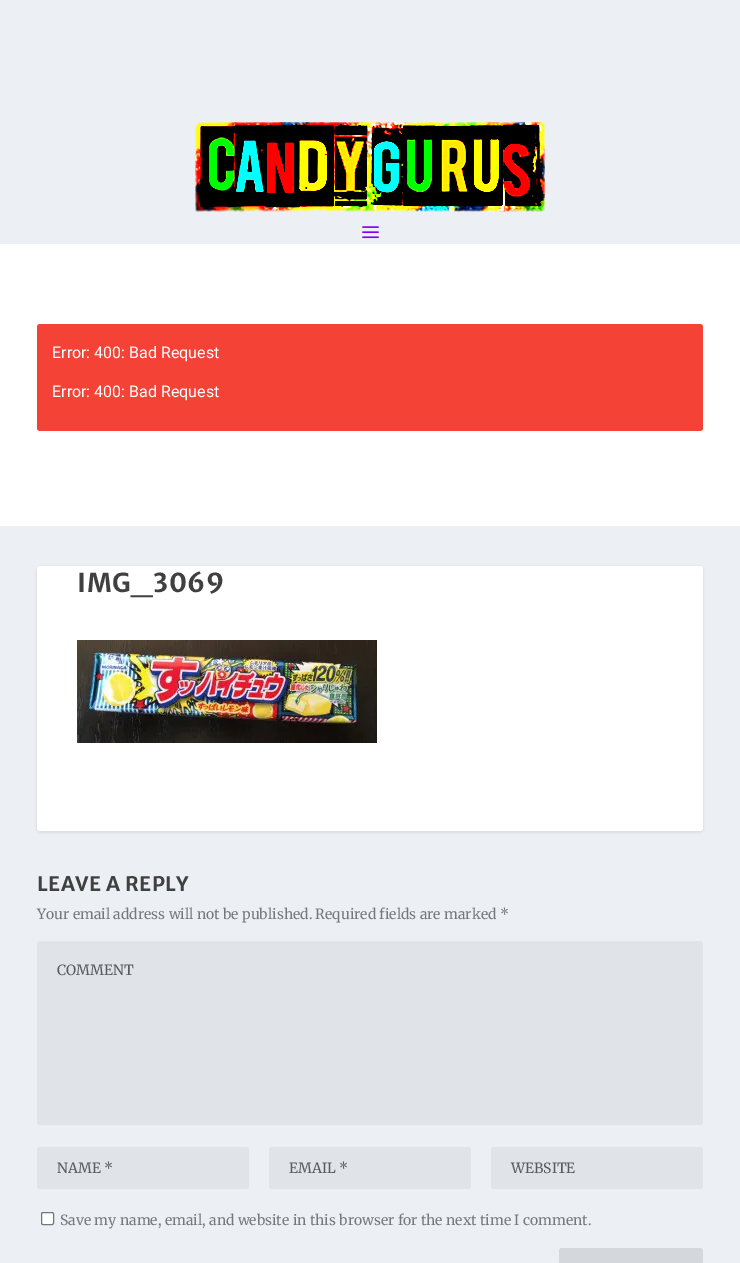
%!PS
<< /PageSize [740 1263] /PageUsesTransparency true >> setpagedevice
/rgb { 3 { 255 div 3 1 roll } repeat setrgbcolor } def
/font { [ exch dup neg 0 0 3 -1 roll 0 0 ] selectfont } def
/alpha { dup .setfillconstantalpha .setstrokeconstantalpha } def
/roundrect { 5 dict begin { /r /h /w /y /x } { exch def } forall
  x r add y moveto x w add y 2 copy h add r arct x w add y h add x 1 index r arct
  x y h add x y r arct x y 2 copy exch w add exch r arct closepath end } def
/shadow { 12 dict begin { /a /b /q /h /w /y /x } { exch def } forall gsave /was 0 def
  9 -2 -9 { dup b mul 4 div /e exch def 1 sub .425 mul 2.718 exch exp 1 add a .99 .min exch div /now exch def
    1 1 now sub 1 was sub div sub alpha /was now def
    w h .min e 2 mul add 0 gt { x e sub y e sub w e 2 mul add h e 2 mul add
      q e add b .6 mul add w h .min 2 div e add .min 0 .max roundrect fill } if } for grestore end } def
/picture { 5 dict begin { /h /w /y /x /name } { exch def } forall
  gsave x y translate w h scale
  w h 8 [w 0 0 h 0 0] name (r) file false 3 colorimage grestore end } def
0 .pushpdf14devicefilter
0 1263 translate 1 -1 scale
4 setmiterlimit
236 240 245 rgb
0 0 740 1263 rectfill
(img/1.rgb) 195 122 350 90 picture
(img/2.rgb) 362 226 17 13 picture
255 255 255 rgb
0 244 740 282 rectfill
244 67 54 rgb
37 324 666 107 3 roundrect fill
0 0 0 rgb
37 567 666 265 3 1.5 0.1 shadow
255 255 255 rgb
37 566 666 265 3 roundrect fill
(img/3.rgb) 77 640 300 103 picture
224 228 232 rgb
37 941 666 184 3 roundrect fill
224 228 233 rgb
37 1147 212 42 3 roundrect fill
269 1147 202 42 3 roundrect fill
491 1147 212 42 3 roundrect fill
255 255 255 rgb
41.5 1212.5 12 12 1.5 roundrect gsave fill grestore
118 118 118 rgb
stroke
212 216 221 rgb
559 1248 144 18 3 roundrect fill
/Roboto-Regular 16 font
255 255 255 rgb
52 358 moveto (Error: 400: Bad Request) show
52 397 moveto (Error: 400: Bad Request) show
/MerriweatherSans-Bold 26 font
64 64 64 rgb
77 592 moveto 0.5 0 (IMG_3069) ashow
/MerriweatherSans-Bold 20 font
37 891 moveto 0.5 0 (LEAVE A REPLY) ashow
/Merriweather-Light 14 font
118 120 123 rgb
37 919 moveto (Your email address will not be published. Required fields are marked *) show
90 91 93 rgb
[
  [(COMMENT) 57 975]
  [(NAME *) 57 1173]
  [(EMAIL *) 289 1173]
  [(WEBSITE) 511 1173]
] { aload pop moveto show } forall
118 120 123 rgb
60 1225 moveto (Save my name, email, and website in this browser for the next time I comment.) show
.poppdf14devicefilter showpage
